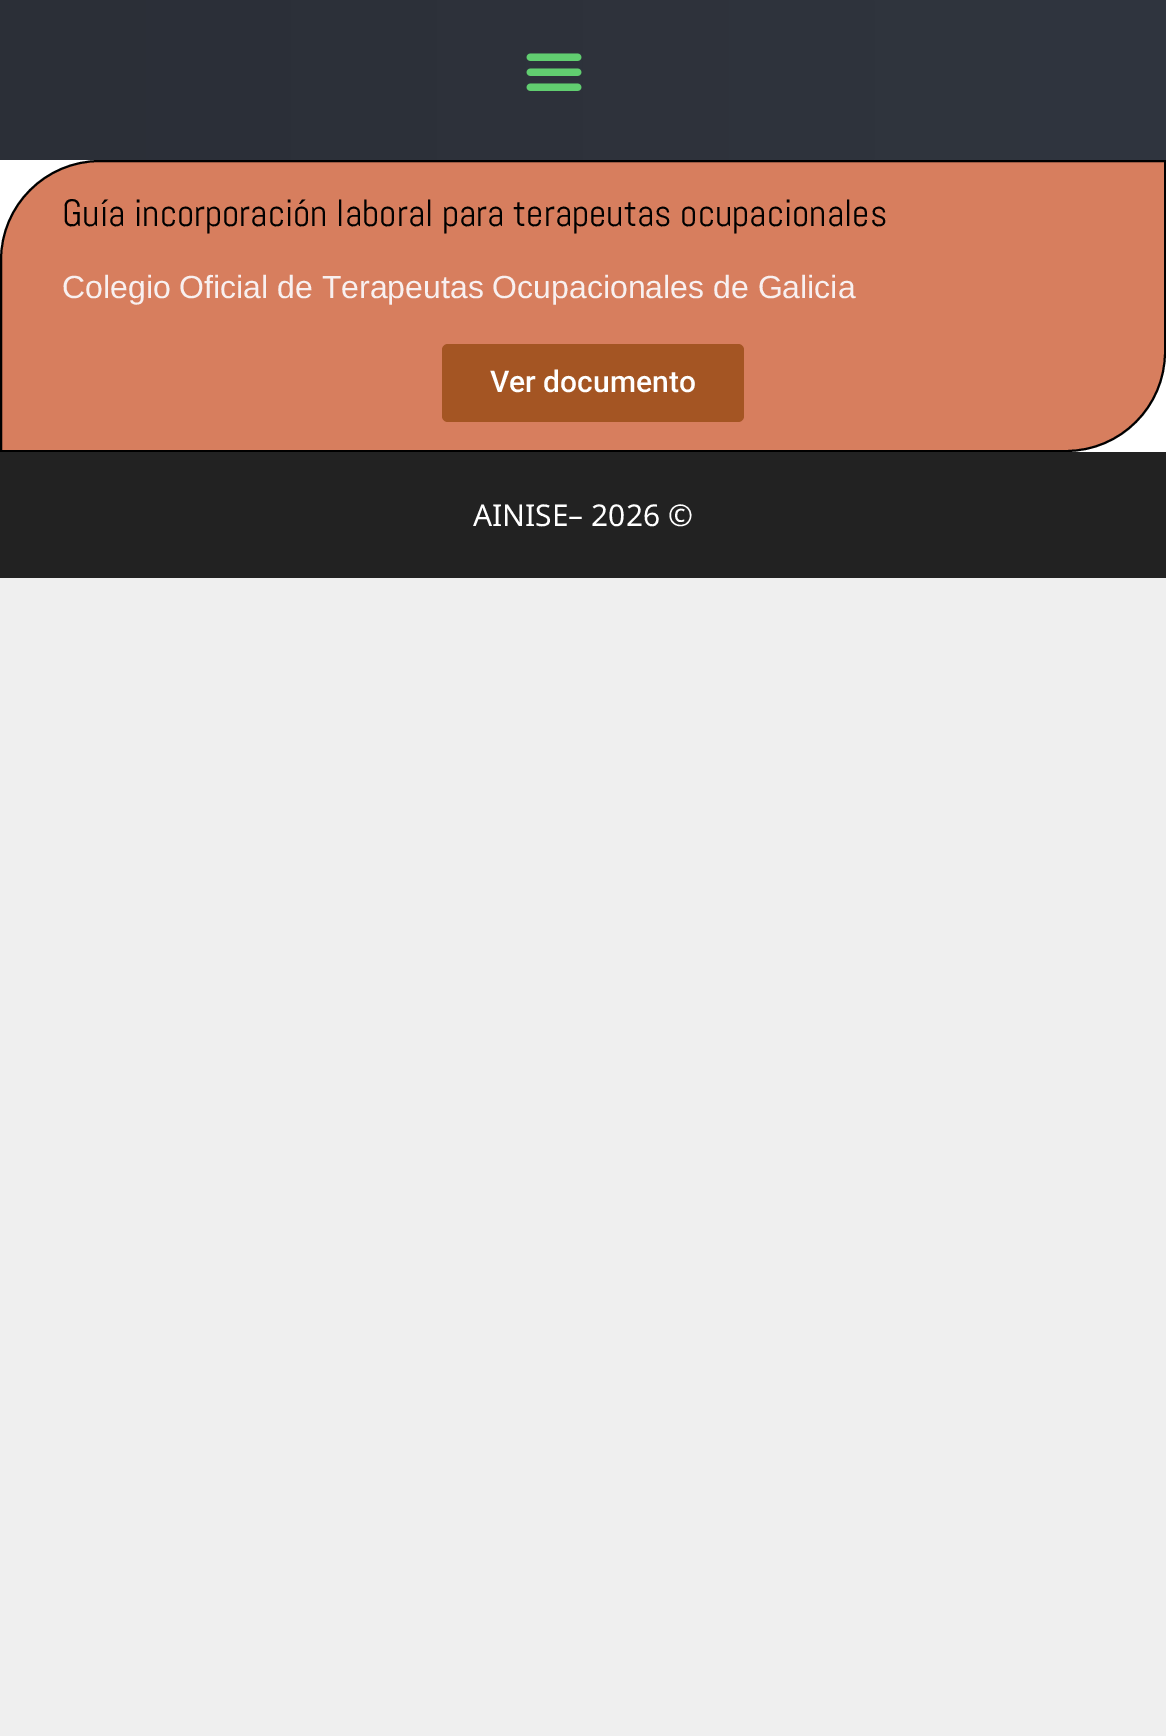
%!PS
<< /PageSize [1166 1736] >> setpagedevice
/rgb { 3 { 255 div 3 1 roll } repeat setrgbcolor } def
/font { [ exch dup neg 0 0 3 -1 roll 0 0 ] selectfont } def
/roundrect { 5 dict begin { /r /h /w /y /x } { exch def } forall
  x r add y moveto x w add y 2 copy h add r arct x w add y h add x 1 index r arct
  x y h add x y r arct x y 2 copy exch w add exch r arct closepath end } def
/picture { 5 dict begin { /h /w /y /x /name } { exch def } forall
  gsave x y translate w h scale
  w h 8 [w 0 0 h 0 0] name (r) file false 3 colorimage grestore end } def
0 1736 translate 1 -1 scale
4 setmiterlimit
239 239 239 rgb
0 0 1166 1736 rectfill
gsave 0 0 moveto 1166 0 lineto 1166 160 lineto 0 160 lineto closepath clip newpath
<< /ShadingType 2 /ColorSpace /DeviceRGB /Coords [0 80 1166 80] /Extend [true true] /Function << /FunctionType 2 /Domain [0 1] /C0 [0.169 0.184 0.216] /C1 [0.188 0.208 0.247] /N 1 >> >> shfill grestore
(img/1.rgb) 526 53 56 38 picture
255 255 255 rgb
0 160 1166 292 rectfill
215 126 94 rgb
100 161 moveto 1165 161 lineto 1165 352 lineto 1165 406.5 1120.5 451 1066 451 curveto 1 451 lineto 1 260 lineto 1 205.5 45.5 161 100 161 curveto closepath gsave fill grestore
0 0 0 rgb
2 setlinewidth
stroke
164 85 35 rgb
442 344 302 78 6 roundrect fill
34 34 34 rgb
0 452 1166 126 rectfill
/Abel-Regular 38 font
0 0 0 rgb
62 226 moveto (Guía incorporación laboral para terapeutas ocupacionales) show
/LiberationSans-Regular 32 font
248 240 240 rgb
62 298 moveto (Colegio Oficial de Terapeutas Ocupacionales de Galicia) show
/Roboto-Medium 30 font
255 255 255 rgb
490 392 moveto (Ver documento) show
/NotoSans-Regular 30 font
473 526 moveto (AINISE– 2026 ©) show
showpage
